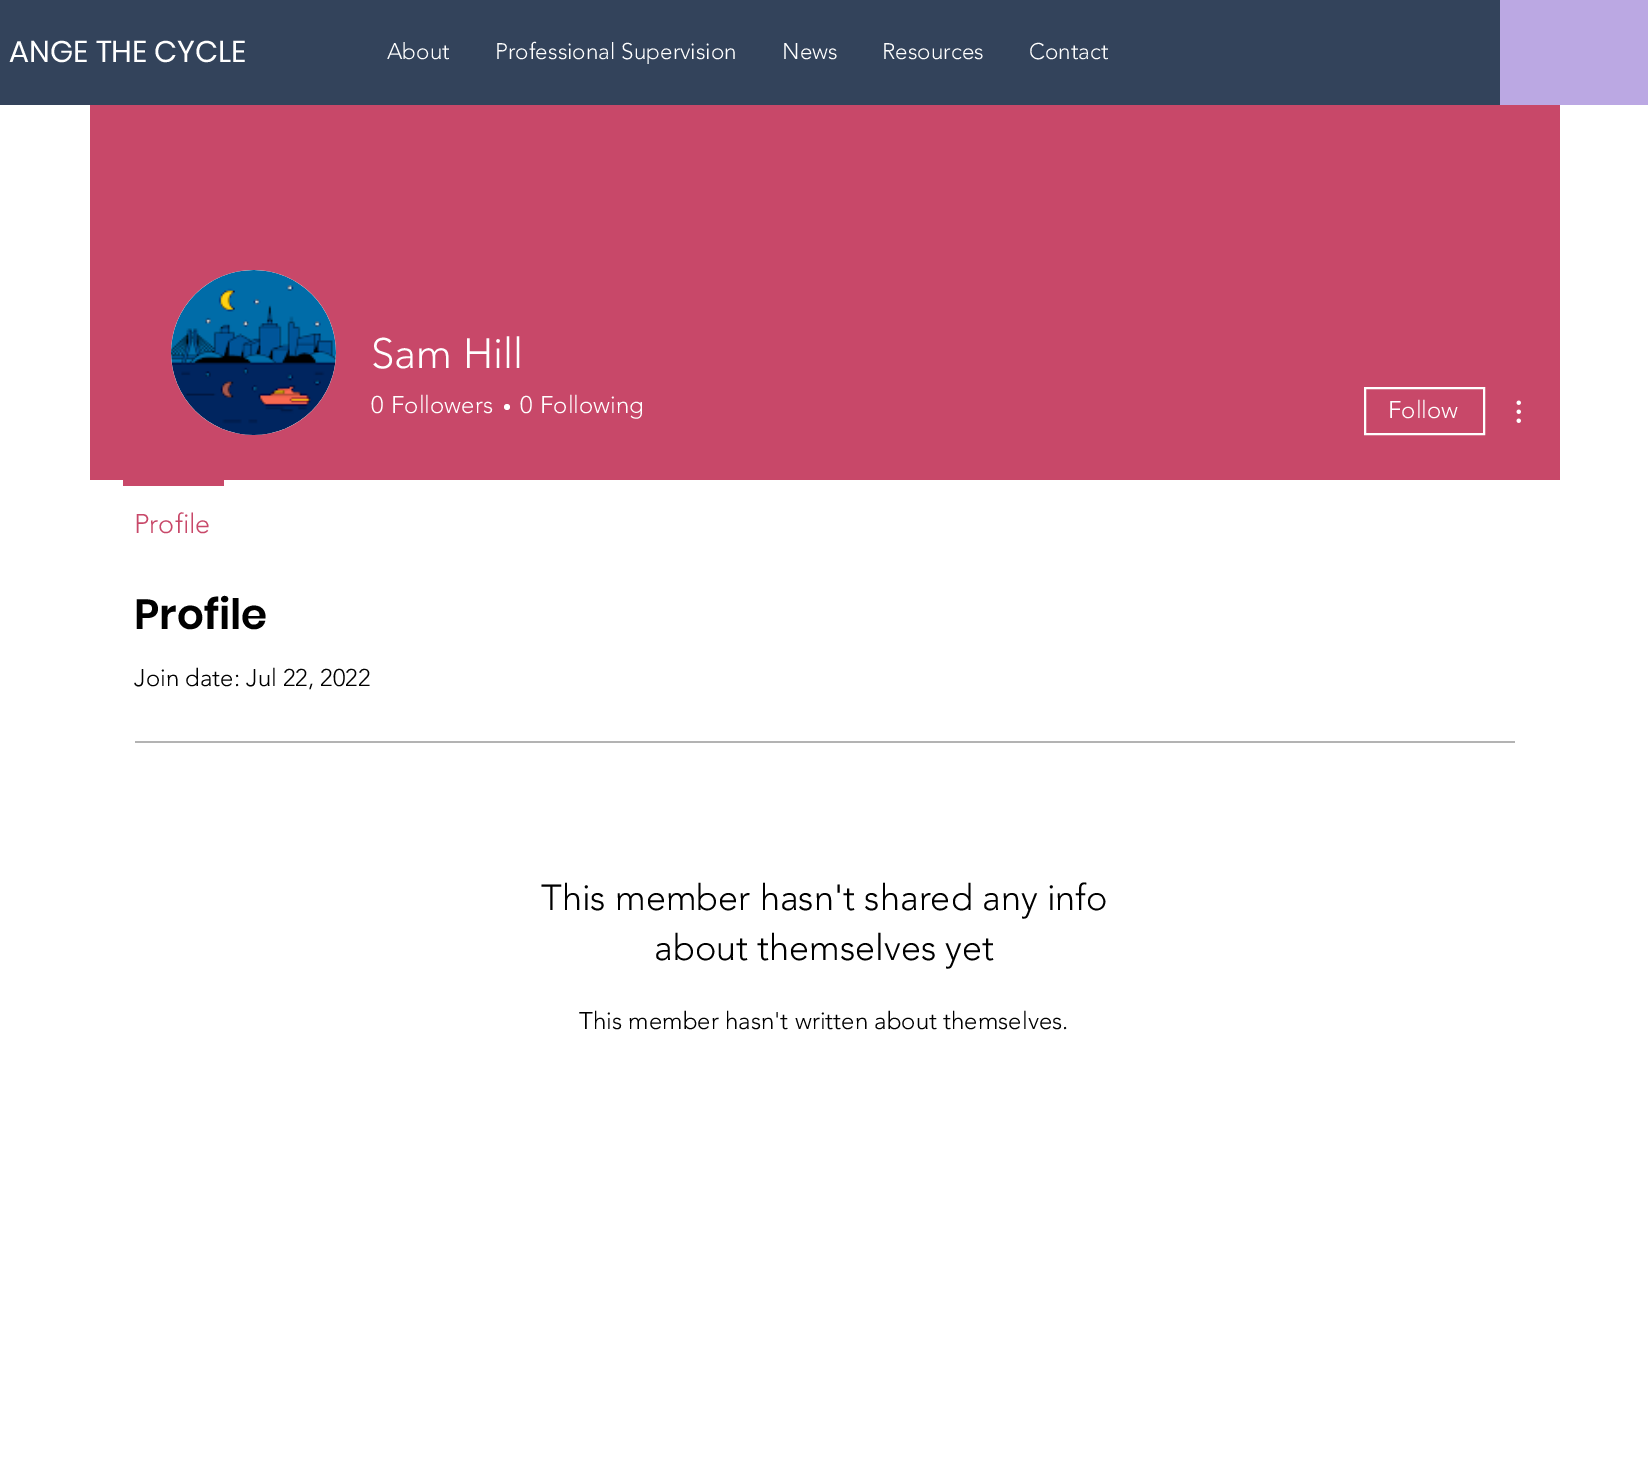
%!PS
<< /PageSize [1648 1466] >> setpagedevice
/rgb { 3 { 255 div 3 1 roll } repeat setrgbcolor } def
/font { [ exch dup neg 0 0 3 -1 roll 0 0 ] selectfont } def
/circle { newpath 0 360 arc closepath } def
/picture { 5 dict begin { /h /w /y /x /name } { exch def } forall
  gsave x y translate w h scale
  w h 8 [w 0 0 h 0 0] name (r) file false 3 colorimage grestore end } def
0 1466 translate 1 -1 scale
4 setmiterlimit
255 255 255 rgb
0 0 1648 1466 rectfill
[
  [0 0 1500 105 51 67 91]
  [1500 0 148 105 187 168 227]
  [90 105 1470 375 200 72 105]
] { aload pop rgb rectfill } forall
216 216 216 rgb
253.5 352.5 82.5 circle fill
(img/1.rgb) 171 270 165 165 picture
255 255 255 rgb
507 407 3 circle fill
2 setlinewidth
1365 388 119 46 rectstroke
(img/2.rgb) 1516 400 5 23 picture
200 72 105 rgb
123 480 101 6 rectfill
179 179 179 rgb
135 741 1380 2 rectfill
/Poppins-Regular 30 font
255 255 255 rgb
9 62 moveto (ANGE THE CYCLE) show
/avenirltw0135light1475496-Light 22.5 font
[
  [(About) 387 59]
  [(Professional Supervision) 495 59]
  [(News) 782 59]
  [(Resources) 882 59]
  [(Contact) 1029 59]
] { aload pop moveto show } forall
/avenirltw0135light1475496-Light 42 font
371 368 moveto (Sam Hill) show
/avenirltw0135light1475496-Light 24 font
[
  [(0) 371 413]
  [(Followers) 391 413]
  [(0) 520 413]
  [(Following) 540 413]
  [(Follow) 1388 418]
] { aload pop moveto show } forall
/avenirltw0135light1475496-Light 27 font
200 72 105 rgb
134 533 moveto (Profile) show
/Poppins-SemiBold 42 font
0 0 0 rgb
134 629 moveto (Profile) show
/avenirltw0135light1475496-Light 24 font
134 686 moveto (Join date: Jul 22, 2022) show
/avenirltw0135light1475496-Light 36 font
541 910 moveto (This member hasn't shared any info) show
654 960 moveto (about themselves yet) show
/avenirltw0135light1475496-Light 24 font
579 1029 moveto (This member hasn't written about themselves.) show
showpage
